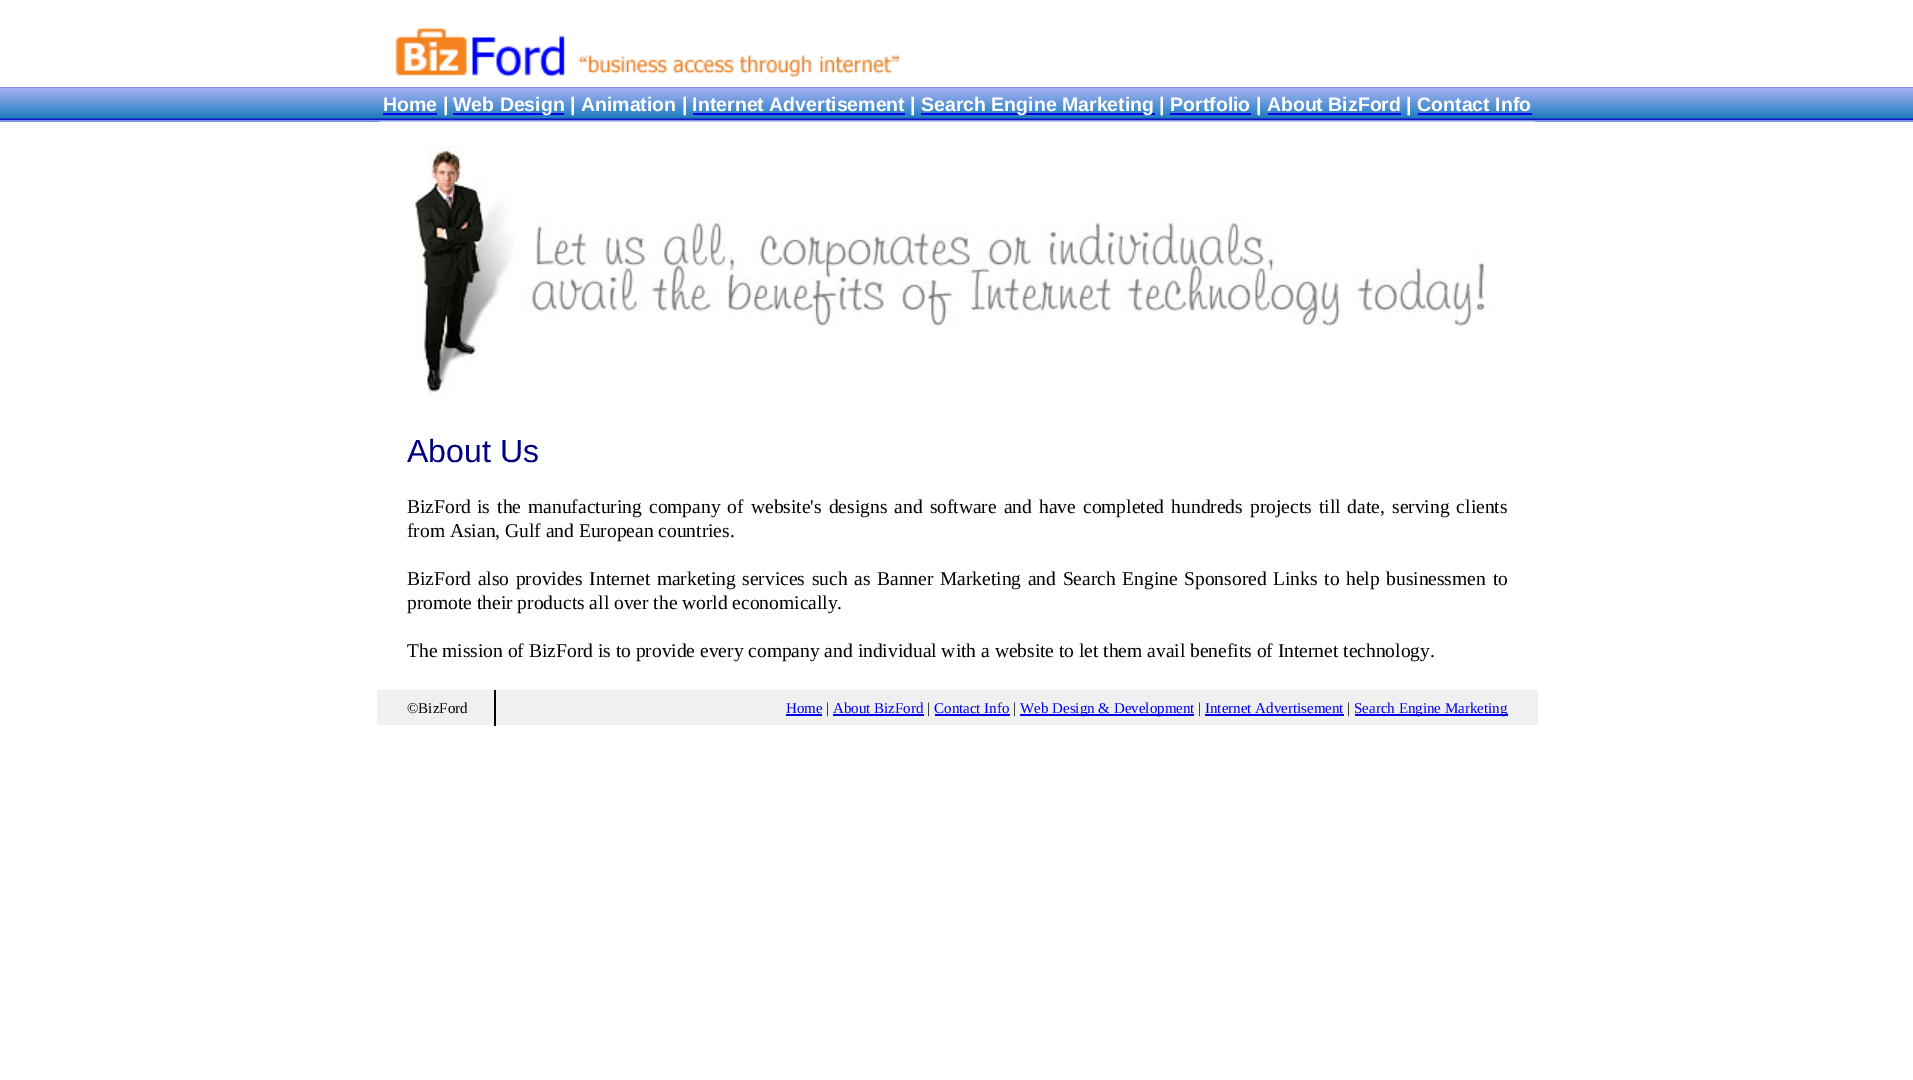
%!PS
<< /PageSize [1913 1080] >> setpagedevice
/rgb { 3 { 255 div 3 1 roll } repeat setrgbcolor } def
/font { [ exch dup neg 0 0 3 -1 roll 0 0 ] selectfont } def
/picture { 5 dict begin { /h /w /y /x /name } { exch def } forall
  gsave x y translate w h scale
  w h 8 [w 0 0 h 0 0] name (r) file false 3 colorimage grestore end } def
0 1080 translate 1 -1 scale
4 setmiterlimit
255 255 255 rgb
0 0 1913 1080 rectfill
(img/1.rgb) 395 28 506 49 picture
50 133 200 rgb
0 121 1913 1 rectfill
(img/2.rgb) 0 87 1913 35 picture
[
  [383 113 54 2 0 0 238]
  [453 113 111 2 0 0 238]
  [921 113 234 2 0 0 238]
] { aload pop rgb rectfill } forall
(img/3.rgb) 379 121 1156 276 picture
[
  [377 690 117 35 240 240 240]
  [496 690 1042 35 240 240 240]
  [494 690 2 36 0 0 0]
  [786 714 36 2 0 0 238]
  [833 714 91 2 0 0 238]
  [935 714 75 2 0 0 238]
  [1020 714 174 2 0 0 238]
  [1205 714 139 2 0 0 238]
  [1355 714 153 2 0 0 238]
] { aload pop rgb rectfill } forall
/LiberationSans-Bold 19.5 font
255 255 255 rgb
383 111 moveto (Home |) show
453 111 moveto (Web Design | Animation | Internet Advertisement |) show
0 0 238 rgb
693 113 212 2 rectfill
255 255 255 rgb
921 111 moveto (Search Engine Marketing | Portfolio | About BizFord | Contact Info) show
[
  [1170 113 81 2 0 0 238]
  [1268 113 133 2 0 0 238]
  [1418 113 114 2 0 0 238]
] { aload pop rgb rectfill } forall
/LiberationSans-Regular 32 font
0 0 128 rgb
407 462 moveto (About Us) show
/LiberationSerif-Regular 19.5 font
0 0 0 rgb
407 513 moveto (BizFord) show
477 513 moveto 2.25 0 32 (is the manufacturing company of website's designs and software and) widthshow
1039 513 moveto 2.25 0 32 (have completed hundreds projects till date, serving clients) widthshow
407 537 moveto (from Asian, Gulf and European countries.) show
407 585 moveto 1.75 0 32 (BizFord also provides Internet marketing services such as Banner) widthshow
940 585 moveto 1.75 0 32 (Marketing and Search Engine Sponsored Links to help) widthshow
1386 585 moveto 2 0 32 (businessmen to) widthshow
407 609 moveto (promote their products all over the world economically.) show
407 657 moveto (The mission of BizFord is to provide every company and individual with a website to let them avail benefits of Internet technology.) show
/LiberationSerif-Regular 15 font
407 713 moveto (©BizFord) show
0 0 238 rgb
786 713 moveto (Home) show
0 0 0 rgb
826 713 moveto (|) show
0 0 238 rgb
833 713 moveto (About BizFord) show
0 0 0 rgb
927 713 moveto (|) show
0 0 238 rgb
934 713 moveto (Contact Info) show
0 0 0 rgb
1013 713 moveto (|) show
0 0 238 rgb
1020 713 moveto (Web Design & Development) show
0 0 0 rgb
1198 713 moveto (|) show
0 0 238 rgb
1205 713 moveto (Internet Advertisement) show
0 0 0 rgb
1347 713 moveto (|) show
0 0 238 rgb
1354 713 moveto (Search Engine Marketing) show
showpage
